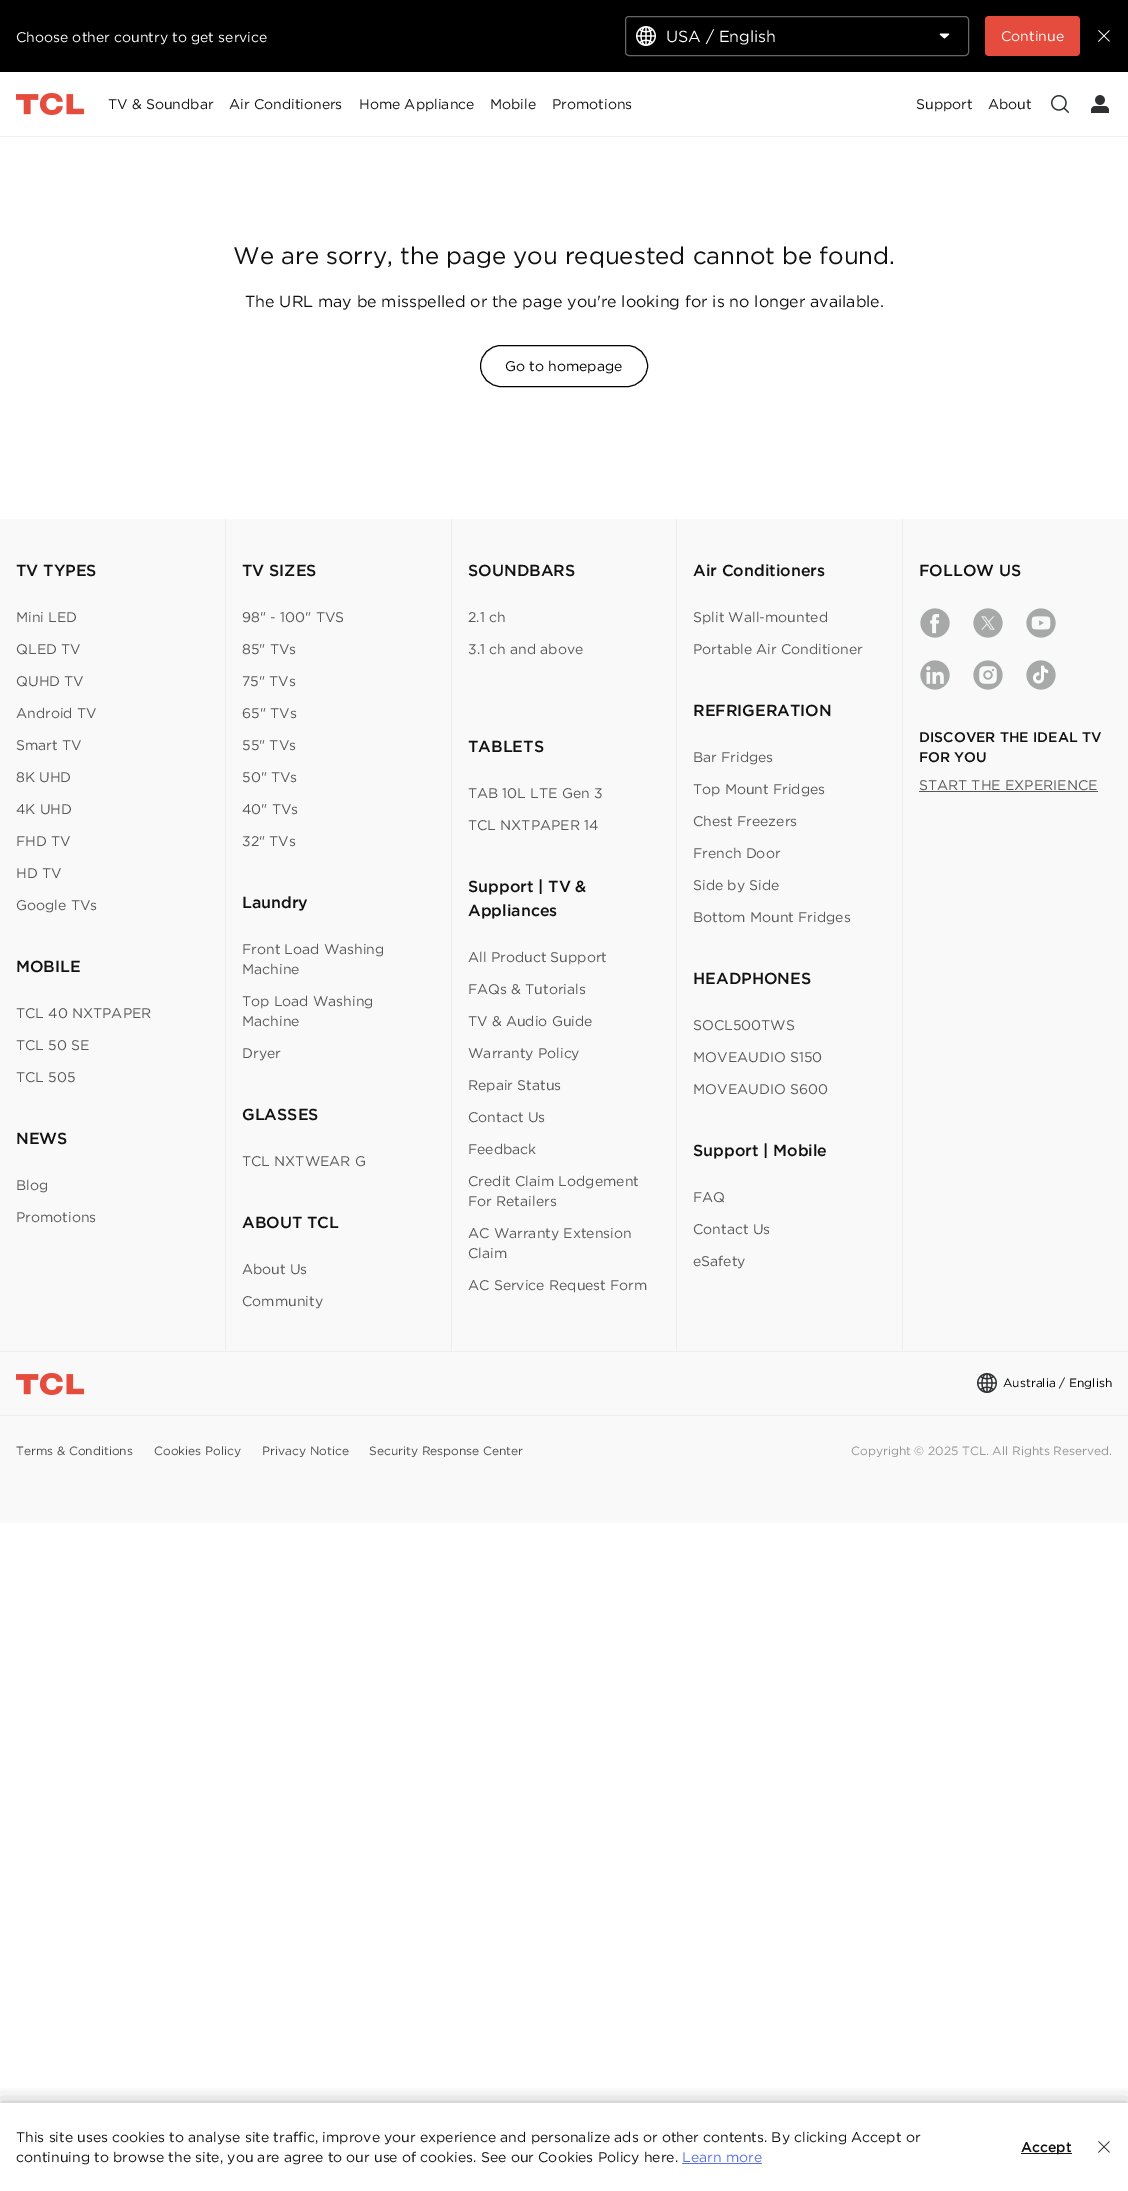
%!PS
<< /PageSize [1128 2191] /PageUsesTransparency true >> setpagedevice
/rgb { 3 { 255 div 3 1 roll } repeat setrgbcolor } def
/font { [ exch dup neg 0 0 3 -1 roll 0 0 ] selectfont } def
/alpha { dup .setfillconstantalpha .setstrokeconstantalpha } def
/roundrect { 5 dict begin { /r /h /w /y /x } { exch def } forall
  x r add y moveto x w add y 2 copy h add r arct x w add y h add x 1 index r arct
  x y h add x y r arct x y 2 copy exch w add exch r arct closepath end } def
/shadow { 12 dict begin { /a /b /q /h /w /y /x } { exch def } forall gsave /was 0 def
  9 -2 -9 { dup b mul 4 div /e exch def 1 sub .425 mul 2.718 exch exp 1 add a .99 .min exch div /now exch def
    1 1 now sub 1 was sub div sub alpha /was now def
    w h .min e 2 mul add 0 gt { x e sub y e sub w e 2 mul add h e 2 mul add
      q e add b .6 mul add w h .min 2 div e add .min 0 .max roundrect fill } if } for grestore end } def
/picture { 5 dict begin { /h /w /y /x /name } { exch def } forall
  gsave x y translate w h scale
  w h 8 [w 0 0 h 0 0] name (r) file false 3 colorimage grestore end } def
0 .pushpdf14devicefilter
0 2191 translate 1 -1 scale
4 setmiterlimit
255 255 255 rgb
0 0 1128 2191 rectfill
0 0 0 rgb
0 0 1128 72 rectfill
102 102 102 rgb
625.5 16.5 343 39 3.5 roundrect stroke
(img/1.rgb) 636 26 20 20 picture
(img/2.rgb) 939 33 11 6 picture
230 76 61 rgb
985 16 95 40 4 roundrect fill
(img/3.rgb) 1098 30 12 12 picture
240 240 240 rgb
0 136 1128 1 rectfill
(img/4.rgb) 16 93 68 22 picture
(img/5.rgb) 1051 95 18 18 picture
(img/6.rgb) 1091 95 18 18 picture
0 0 0 rgb
480.5 345.5 167 41 20.5 roundrect stroke
[
  [0 519 1128 1004 249 249 249]
  [225 519 1 832 238 238 238]
  [451 519 1 832 238 238 238]
  [676 519 1 832 238 238 238]
  [902 519 1 832 238 238 238]
] { aload pop rgb rectfill } forall
(img/7.rgb) 920 608 30 30 picture
(img/8.rgb) 973 608 30 30 picture
(img/9.rgb) 1026 608 30 30 picture
(img/10.rgb) 920 660 30 30 picture
(img/11.rgb) 973 660 30 30 picture
(img/12.rgb) 1026 660 30 30 picture
[
  [919 791 179 1 87 87 87]
  [0 1351 1128 1 238 238 238]
  [0 1415 1128 1 238 238 238]
] { aload pop rgb rectfill } forall
(img/13.rgb) 16 1373 68 22 picture
(img/14.rgb) 977 1373 20 20 picture
gsave
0 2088 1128 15 rectclip
0 0 0 rgb
0 2103 1128 88 0 10 0.3 shadow
grestore
89 113 229 rgb
682 2163 80 1 rectfill
17 17 17 rgb
1021 2153 51 1 rectfill
(img/15.rgb) 1098 2141 12 12 picture
/Gotham-Regular 14 font
255 255 255 rgb
16 42 moveto (Choose other country to get service) show
/Gotham-Regular 16 font
666 42 moveto (USA / English) show
/Gotham-Regular 14 font
1001 41 moveto (Continue) show
17 17 17 rgb
[
  [(TV & Soundbar) 108 109]
  [(Air Conditioners) 229 109]
  [(Home Appliance) 359 109]
  [(Mobile) 490 109]
  [(Promotions) 552 109]
  [(Support) 916 109]
  [(About) 988 109]
] { aload pop moveto show } forall
/Gotham-Regular 24 font
233 264 moveto (We are sorry, the page you requested cannot be found.) show
/Gotham-Regular 16 font
245 307 moveto (The URL may be misspelled or the page you're looking for is no longer available.) show
/Gotham-Regular 14 font
0 0 0 rgb
505 371 moveto (Go to homepage) show
/Gotham-Medium 16 font
17 17 17 rgb
16 576 moveto (TV TYPES) show
/Gotham-Regular 14 font
87 87 87 rgb
[
  [(Mini LED) 16 622]
  [(QLED TV) 16 654]
  [(QUHD TV) 16 686]
  [(Android TV) 16 718]
  [(Smart TV) 16 750]
  [(8K UHD) 16 782]
  [(4K UHD) 16 814]
  [(FHD TV) 16 846]
  [(HD TV) 16 878]
  [(Google TVs) 16 910]
] { aload pop moveto show } forall
/Gotham-Medium 16 font
17 17 17 rgb
16 972 moveto (MOBILE) show
/Gotham-Regular 14 font
87 87 87 rgb
[
  [(TCL 40 NXTPAPER) 16 1018]
  [(TCL 50 SE) 16 1050]
  [(TCL 505) 16 1082]
] { aload pop moveto show } forall
/Gotham-Medium 16 font
17 17 17 rgb
16 1144 moveto (NEWS) show
/Gotham-Regular 14 font
87 87 87 rgb
16 1190 moveto (Blog) show
16 1222 moveto (Promotions) show
/Gotham-Medium 16 font
17 17 17 rgb
242 576 moveto (TV SIZES) show
/Gotham-Regular 14 font
87 87 87 rgb
[
  [(98" - 100" TVS) 242 622]
  [(85" TVs) 242 654]
  [(75" TVs) 242 686]
  [(65" TVs) 242 718]
  [(55" TVs) 242 750]
  [(50" TVs) 242 782]
  [(40" TVs) 242 814]
  [(32" TVs) 242 846]
] { aload pop moveto show } forall
/Gotham-Medium 16 font
17 17 17 rgb
242 908 moveto (Laundry) show
/Gotham-Regular 14 font
87 87 87 rgb
[
  [(Front Load Washing) 242 954]
  [(Machine) 242 974]
  [(Top Load Washing) 242 1006]
  [(Machine) 242 1026]
  [(Dryer) 242 1058]
] { aload pop moveto show } forall
/Gotham-Medium 16 font
17 17 17 rgb
242 1120 moveto (GLASSES) show
/Gotham-Regular 14 font
87 87 87 rgb
242 1166 moveto (TCL NXTWEAR G) show
/Gotham-Medium 16 font
17 17 17 rgb
242 1228 moveto (ABOUT TCL) show
/Gotham-Regular 14 font
87 87 87 rgb
242 1274 moveto (About Us) show
242 1306 moveto (Community) show
/Gotham-Medium 16 font
17 17 17 rgb
468 576 moveto (SOUNDBARS) show
/Gotham-Regular 14 font
87 87 87 rgb
468 622 moveto (2.1 ch) show
468 654 moveto (3.1 ch and above) show
/Gotham-Medium 16 font
17 17 17 rgb
468 752 moveto (TABLETS) show
/Gotham-Regular 14 font
87 87 87 rgb
468 798 moveto (TAB 10L LTE Gen 3) show
468 830 moveto (TCL NXTPAPER 14) show
/Gotham-Medium 16 font
17 17 17 rgb
468 892 moveto (Support | TV &) show
468 916 moveto (Appliances) show
/Gotham-Regular 14 font
87 87 87 rgb
[
  [(All Product Support) 468 962]
  [(FAQs & Tutorials) 468 994]
  [(TV & Audio Guide) 468 1026]
  [(Warranty Policy) 468 1058]
  [(Repair Status) 468 1090]
  [(Contact Us) 468 1122]
  [(Feedback) 468 1154]
  [(Credit Claim Lodgement) 468 1186]
  [(For Retailers) 468 1206]
  [(AC Warranty Extension) 468 1238]
  [(Claim) 468 1258]
  [(AC Service Request Form) 468 1290]
] { aload pop moveto show } forall
/Gotham-Medium 16 font
17 17 17 rgb
693 576 moveto (Air Conditioners) show
/Gotham-Regular 14 font
87 87 87 rgb
693 622 moveto (Split Wall-mounted) show
693 654 moveto (Portable Air Conditioner) show
/Gotham-Medium 16 font
17 17 17 rgb
693 716 moveto (REFRIGERATION) show
/Gotham-Regular 14 font
87 87 87 rgb
[
  [(Bar Fridges) 693 762]
  [(Top Mount Fridges) 693 794]
  [(Chest Freezers) 693 826]
  [(French Door) 693 858]
  [(Side by Side) 693 890]
  [(Bottom Mount Fridges) 693 922]
] { aload pop moveto show } forall
/Gotham-Medium 16 font
17 17 17 rgb
693 984 moveto (HEADPHONES) show
/Gotham-Regular 14 font
87 87 87 rgb
[
  [(SOCL500TWS) 693 1030]
  [(MOVEAUDIO S150) 693 1062]
  [(MOVEAUDIO S600) 693 1094]
] { aload pop moveto show } forall
/Gotham-Medium 16 font
17 17 17 rgb
693 1156 moveto (Support | Mobile) show
/Gotham-Regular 14 font
87 87 87 rgb
[
  [(FAQ) 693 1202]
  [(Contact Us) 693 1234]
  [(eSafety) 693 1266]
] { aload pop moveto show } forall
/Gotham-Medium 16 font
17 17 17 rgb
919 576 moveto (FOLLOW US) show
/Gotham-Medium 14 font
919 742 moveto (DISCOVER THE IDEAL TV) show
919 762 moveto (FOR YOU) show
/Gotham-Regular 14 font
87 87 87 rgb
919 790 moveto (START THE EXPERIENCE) show
/Gotham-Regular 12 font
0 0 0 rgb
1003 1387 moveto (Australia / English) show
75 75 75 rgb
[
  [(Terms & Conditions) 16 1455]
  [(Cookies Policy) 154 1455]
  [(Privacy Notice) 262 1455]
  [(Security Response Center) 369 1455]
] { aload pop moveto show } forall
149 149 149 rgb
851 1455 moveto (Copyright © 2025 TCL. All Rights Reserved.) show
/Gotham-Regular 14 font
17 17 17 rgb
16 2142 moveto (This site uses cookies to analyse site traffic, improve your experience and personalize ads or other contents. By clicking Accept or) show
16 2162 moveto (continuing to browse the site, you are agree to our use of cookies. See our Cookies Policy here.) show
89 113 229 rgb
682 2162 moveto (Learn more) show
/Gotham-Medium 14 font
17 17 17 rgb
1021 2152 moveto (Accept) show
.poppdf14devicefilter showpage
